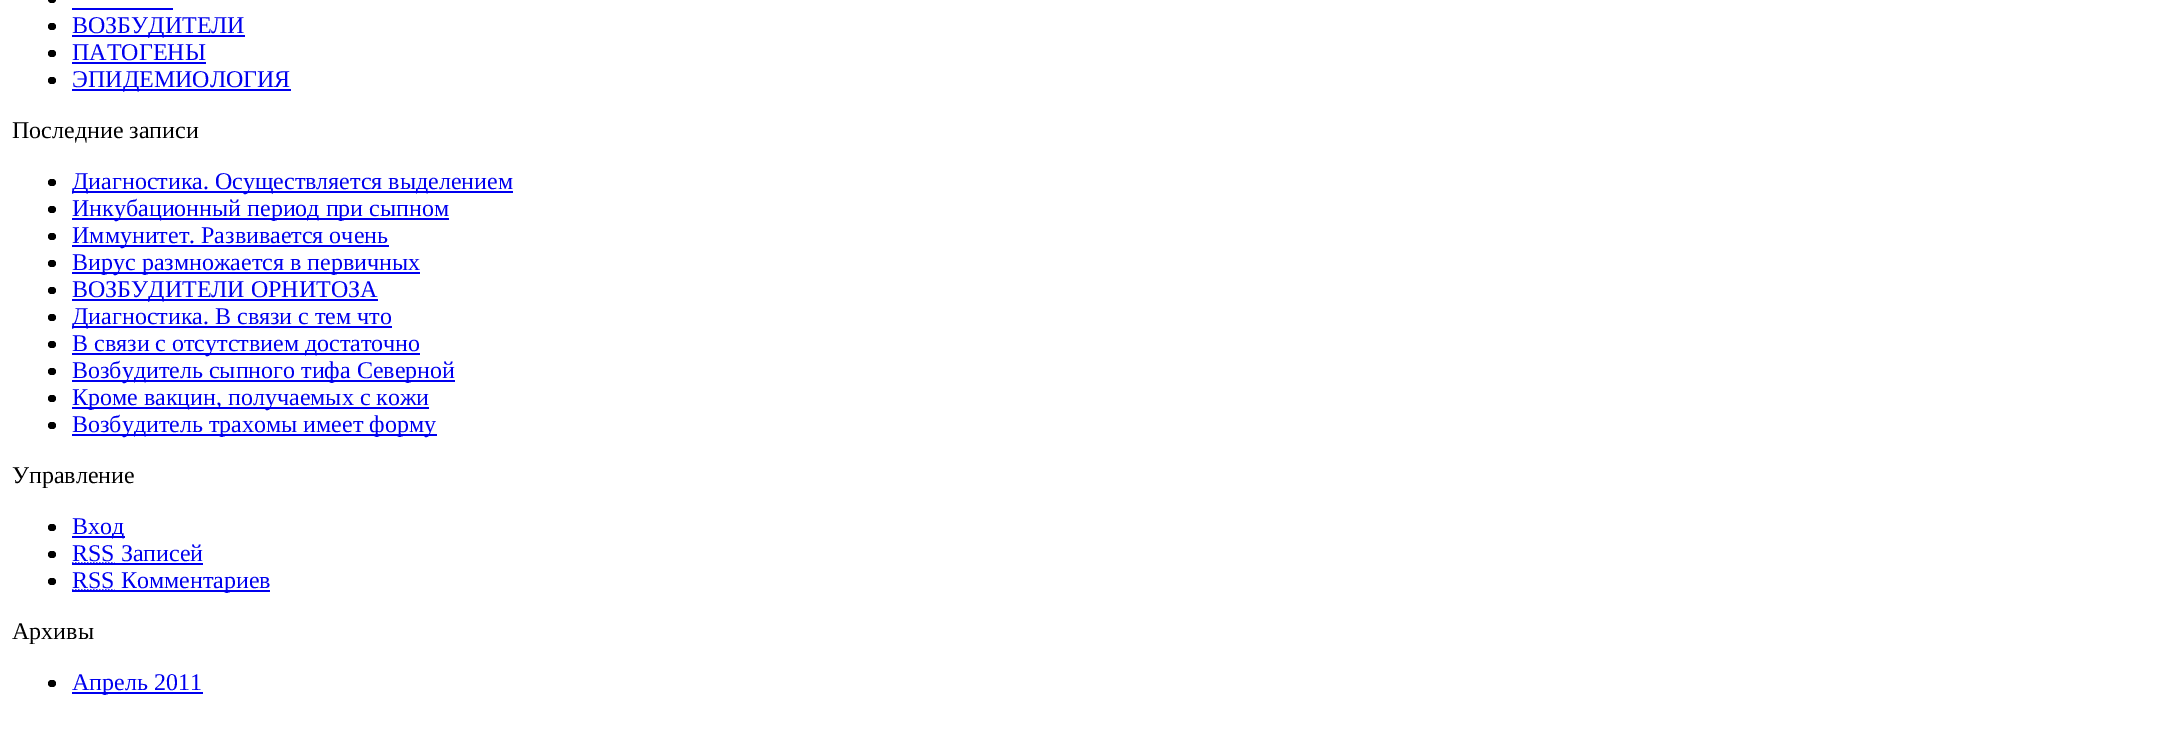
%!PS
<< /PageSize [2176 737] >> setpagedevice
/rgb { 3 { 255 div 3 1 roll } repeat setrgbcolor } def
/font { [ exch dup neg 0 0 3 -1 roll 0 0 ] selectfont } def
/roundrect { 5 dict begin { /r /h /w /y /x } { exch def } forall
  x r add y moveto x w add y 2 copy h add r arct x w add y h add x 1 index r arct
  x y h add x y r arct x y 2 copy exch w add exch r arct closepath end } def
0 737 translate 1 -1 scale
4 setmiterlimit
255 255 255 rgb
0 0 2176 737 rectfill
0 0 0 rgb
48 -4 8 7 3.5 roundrect fill
0 0 238 rgb
72 8 101 2 rectfill
0 0 0 rgb
48 23 8 7 3.5 roundrect fill
0 0 238 rgb
72 35 173 2 rectfill
0 0 0 rgb
48 50 8 7 3.5 roundrect fill
0 0 238 rgb
72 62 134 2 rectfill
0 0 0 rgb
48 77 8 7 3.5 roundrect fill
0 0 238 rgb
72 89 219 2 rectfill
0 0 0 rgb
48 179 8 7 3.5 roundrect fill
0 0 238 rgb
72 191 441 2 rectfill
0 0 0 rgb
48 206 8 7 3.5 roundrect fill
0 0 238 rgb
72 218 377 2 rectfill
0 0 0 rgb
48 233 8 7 3.5 roundrect fill
0 0 238 rgb
72 245 317 2 rectfill
0 0 0 rgb
48 260 8 7 3.5 roundrect fill
0 0 238 rgb
72 272 348 2 rectfill
0 0 0 rgb
48 287 8 7 3.5 roundrect fill
0 0 238 rgb
72 299 306 2 rectfill
0 0 0 rgb
48 314 8 7 3.5 roundrect fill
0 0 238 rgb
72 326 320 2 rectfill
0 0 0 rgb
48 341 8 7 3.5 roundrect fill
0 0 238 rgb
72 353 348 2 rectfill
0 0 0 rgb
48 368 8 7 3.5 roundrect fill
0 0 238 rgb
72 380 383 2 rectfill
0 0 0 rgb
48 395 8 7 3.5 roundrect fill
0 0 238 rgb
72 407 357 2 rectfill
0 0 0 rgb
48 422 8 7 3.5 roundrect fill
0 0 238 rgb
72 434 365 2 rectfill
0 0 0 rgb
48 524 8 7 3.5 roundrect fill
0 0 238 rgb
72 536 53 2 rectfill
0 0 0 rgb
48 551 8 7 3.5 roundrect fill
0 0 238 rgb
1.5 setlinewidth
[1.5 1.5] 0 setdash
72 563 moveto 114.5 563 lineto stroke
72 563 131 2 rectfill
0 0 0 rgb
48 578 8 7 3.5 roundrect fill
0 0 238 rgb
72 590 moveto 114.5 590 lineto stroke
72 590 198 2 rectfill
0 0 0 rgb
48 680 8 7 3.5 roundrect fill
0 0 238 rgb
72 692 131 2 rectfill
/LiberationSerif-Regular 24 font
[
  [(ВОЗБУДИТЕЛИ) 72 33]
  [(ПАТОГЕНЫ) 72 60]
  [(ЭПИДЕМИОЛОГИЯ) 72 87]
] { aload pop moveto show } forall
0 0 0 rgb
12 138 moveto (Последние записи) show
0 0 238 rgb
[
  [(Диагностика. Осуществляется выделением) 72 189]
  [(Инкубационный период при сыпном) 72 216]
  [(Иммунитет. Развивается очень) 72 243]
  [(Вирус размножается в первичных) 72 270]
  [(ВОЗБУДИТЕЛИ ОРНИТОЗА) 72 297]
  [(Диагностика. В связи с тем что) 72 324]
  [(В связи с отсутствием достаточно) 72 351]
  [(Возбудитель сыпного тифа Северной) 72 378]
  [(Кроме вакцин, получаемых с кожи) 72 405]
  [(Возбудитель трахомы имеет форму) 72 432]
] { aload pop moveto show } forall
0 0 0 rgb
12 483 moveto (Управление) show
0 0 238 rgb
[
  [(Вход) 72 534]
  [(RSS Записей) 72 561]
  [(RSS Комментариев) 72 588]
] { aload pop moveto show } forall
0 0 0 rgb
12 639 moveto (Архивы) show
0 0 238 rgb
72 690 moveto (Апрель 2011) show
showpage
